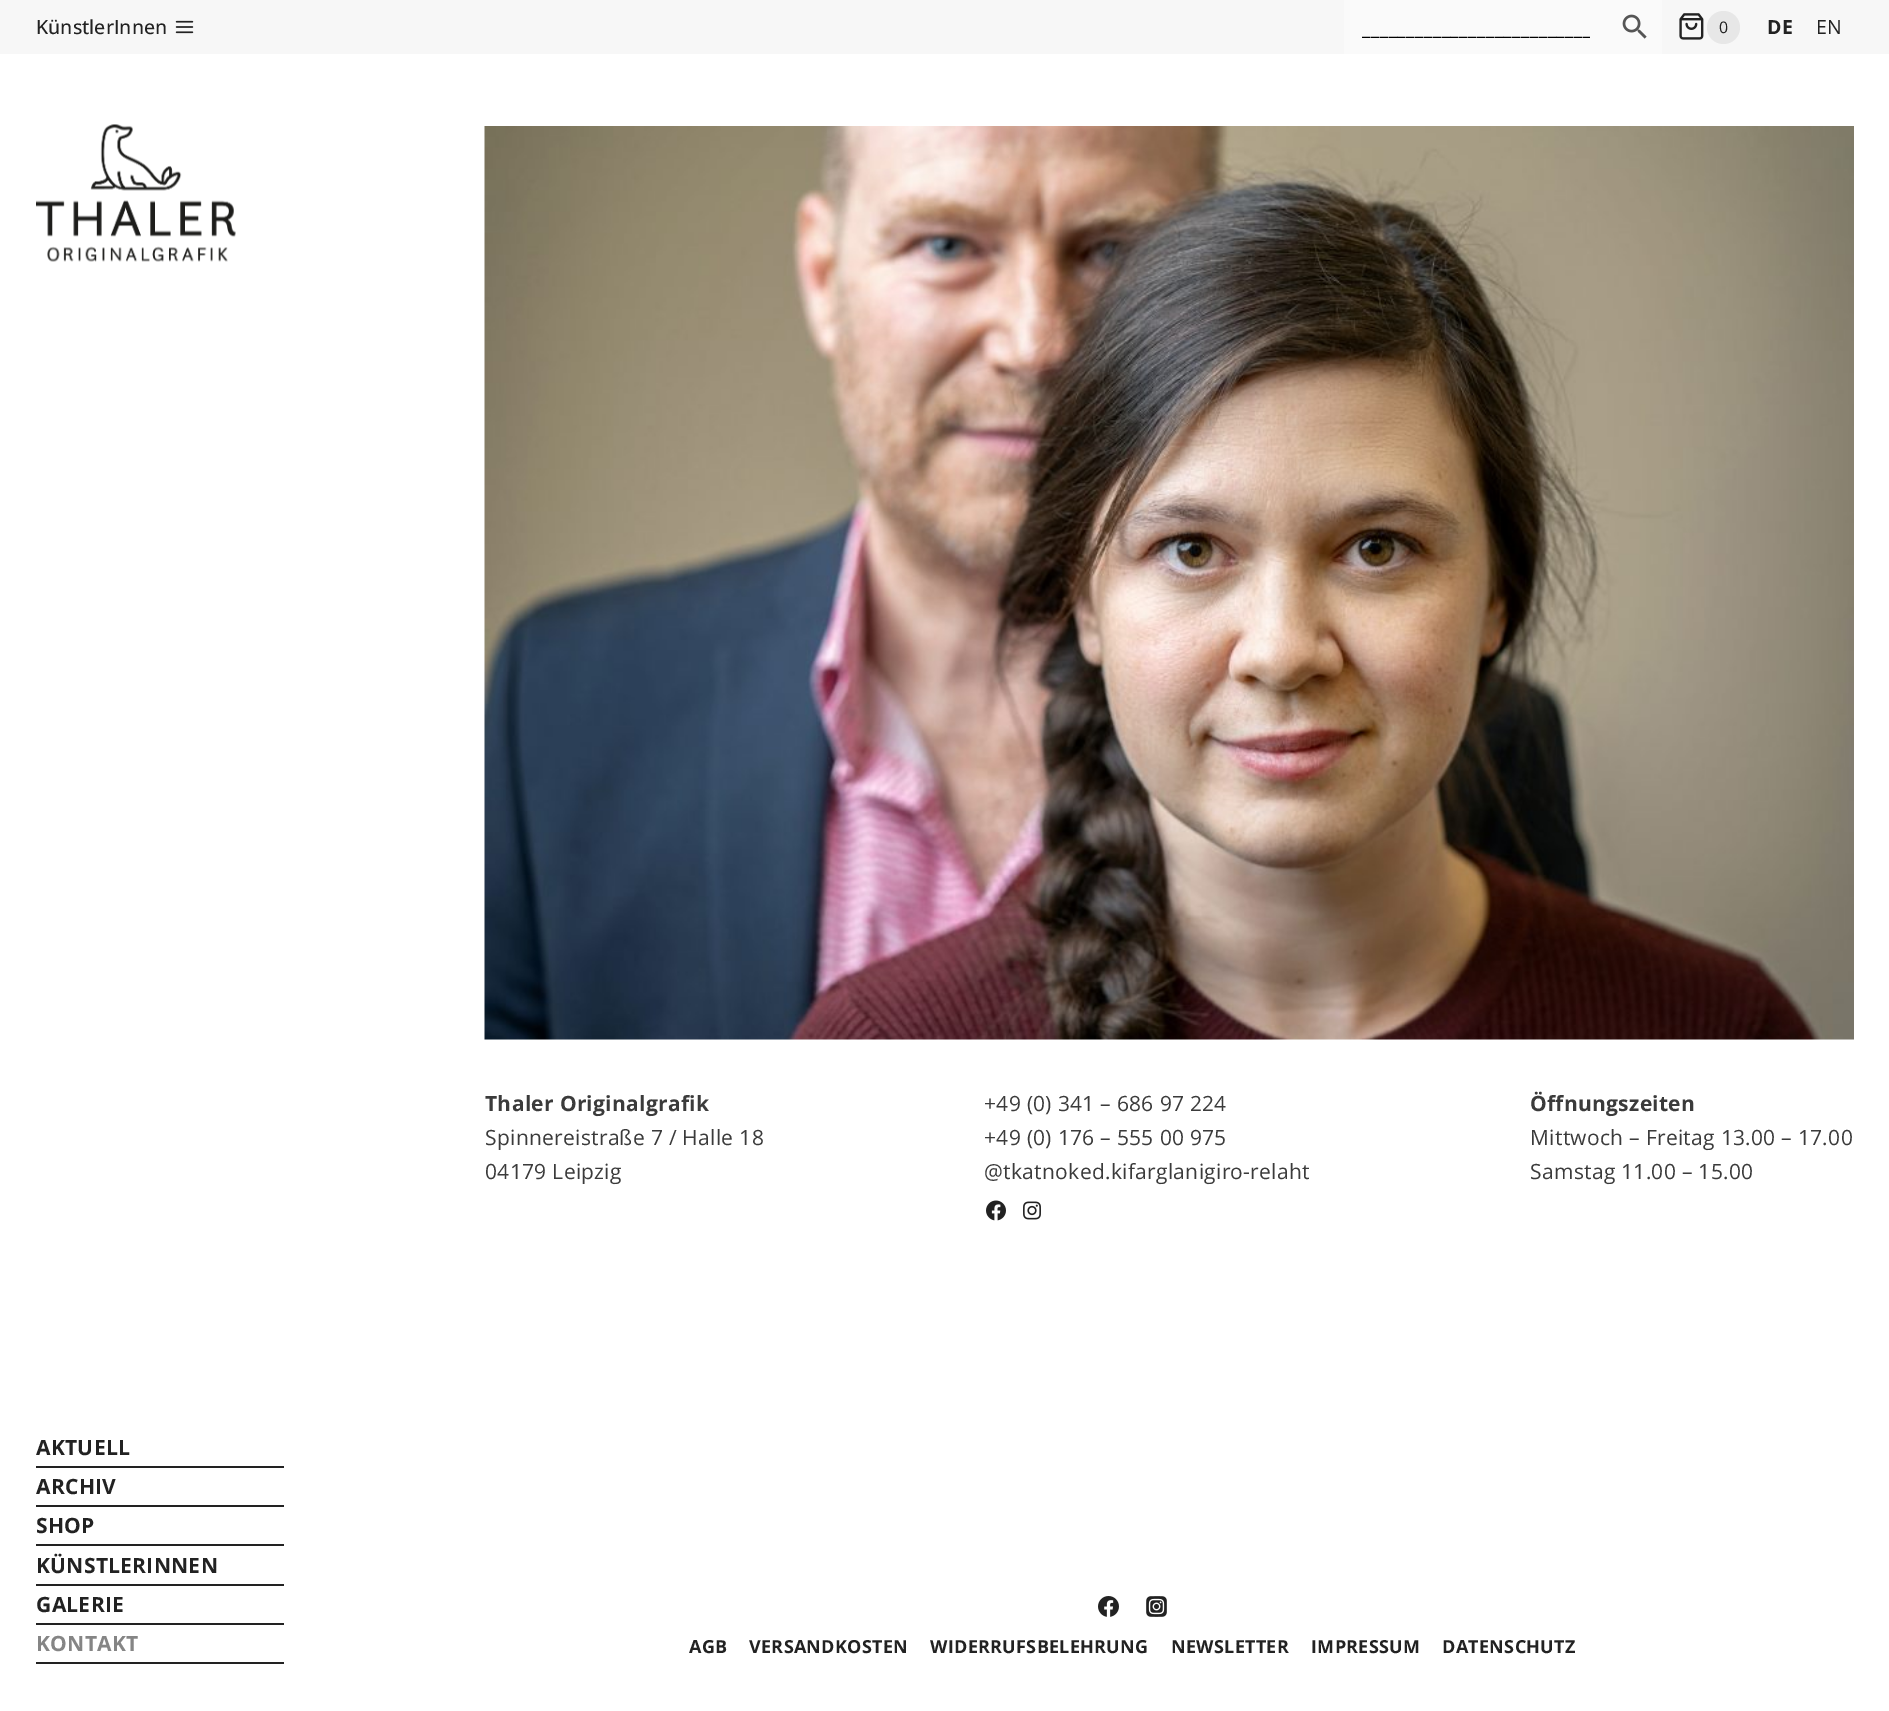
%!PS
<< /PageSize [1889 1711] >> setpagedevice
/rgb { 3 { 255 div 3 1 roll } repeat setrgbcolor } def
/font { [ exch dup neg 0 0 3 -1 roll 0 0 ] selectfont } def
/circle { newpath 0 360 arc closepath } def
/picture { 5 dict begin { /h /w /y /x /name } { exch def } forall
  gsave x y translate w h scale
  w h 8 [w 0 0 h 0 0] name (r) file false 3 colorimage grestore end } def
0 1711 translate 1 -1 scale
4 setmiterlimit
255 255 255 rgb
0 0 1889 1711 rectfill
247 247 247 rgb
0 0 1889 54 rectfill
(img/1.rgb) 175 20 19 14 picture
(img/2.rgb) 1679 13 25 27 picture
231 231 231 rgb
1723.5 27.5 16.5 circle fill
250 250 250 rgb
1344 0 318 54 rectfill
(img/3.rgb) 1622 14 25 25 picture
(img/4.rgb) 484 126 1370 914 picture
(img/5.rgb) 986 1200 20 21 picture
(img/6.rgb) 1023 1201 18 19 picture
(img/7.rgb) 36 124 200 138 picture
[
  [36 1466 248 2 34 34 34]
  [36 1505 248 2 34 34 34]
  [36 1544 248 2 34 34 34]
  [36 1584 248 2 34 34 34]
  [36 1623 248 2 34 34 34]
  [36 1662 248 2 34 34 34]
] { aload pop rgb rectfill } forall
(img/8.rgb) 1098 1596 21 21 picture
(img/9.rgb) 1146 1596 21 21 picture
/OpenSans-Medium 19.5 font
36 34 moveto (KünstlerInnen) show
/OpenSans-Regular 16 font
1719 33 moveto (0) show
/OpenSans-Bold 19.5 font
1767 34 moveto 0.3 0 (DE) ashow
/OpenSans-Regular 19.5 font
1816 34 moveto 0.3 0 (EN) ashow
gsave
1362 14 228 27 rectclip
0 0 0 rgb
1362 35 moveto 0.3 0 (__________________________) ashow
grestore
/OpenSans-Bold 21 font
59 59 59 rgb
485 1111 moveto 0.3 0 (Thaler Originalgrafik) ashow
/OpenSans-Regular 21 font
485 1145 moveto 0.3 0 (Spinnereistraße 7 / Halle 18) ashow
485 1179 moveto 0.3 0 (04179 Leipzig) ashow
984 1111 moveto 0.3 0 (+49 \(0\) 341 – 686 97 224) ashow
984 1145 moveto 0.3 0 (+49 \(0\) 176 – 555 00 975) ashow
984 1179 moveto 0.3 0 (@tkatnok) ashow
1080 1179 moveto 0.3 0 (ed.kifarglanigiro-relaht) ashow
/OpenSans-Bold 21 font
1530 1111 moveto 0.3 0 (Öffnungszeiten) ashow
/OpenSans-Regular 21 font
1530 1145 moveto 0.3 0 (Mittwoch – Freitag 13.00 – 17.00) ashow
1530 1179 moveto 0.3 0 (Samstag 11.00 – 15.00) ashow
/OpenSans-Bold 21 font
34 34 34 rgb
36 1455 moveto 0.3 0 (AKTUELL) ashow
36 1494 moveto 0.3 0 (ARCHIV) ashow
36 1533 moveto 0.3 0 (SHOP) ashow
36 1573 moveto 0.3 0 (KÜNSTLERINNEN) ashow
36 1612 moveto 0.3 0 (GALERIE) ashow
133 133 133 rgb
36 1651 moveto 0.3 0 (KONTAKT) ashow
/OpenSans-Bold 18 font
34 34 34 rgb
689 1653 moveto 0.3 0 (AGB) ashow
749 1653 moveto 0.3 0 (VERSANDKOSTEN) ashow
930 1653 moveto 0.3 0 (WIDERRUFSBELEHRUNG) ashow
1171 1653 moveto 0.3 0 (NEWSLETTER) ashow
1311 1653 moveto 0.3 0 (IMPRESSUM) ashow
1442 1653 moveto 0.3 0 (DATENSCHUTZ) ashow
showpage
